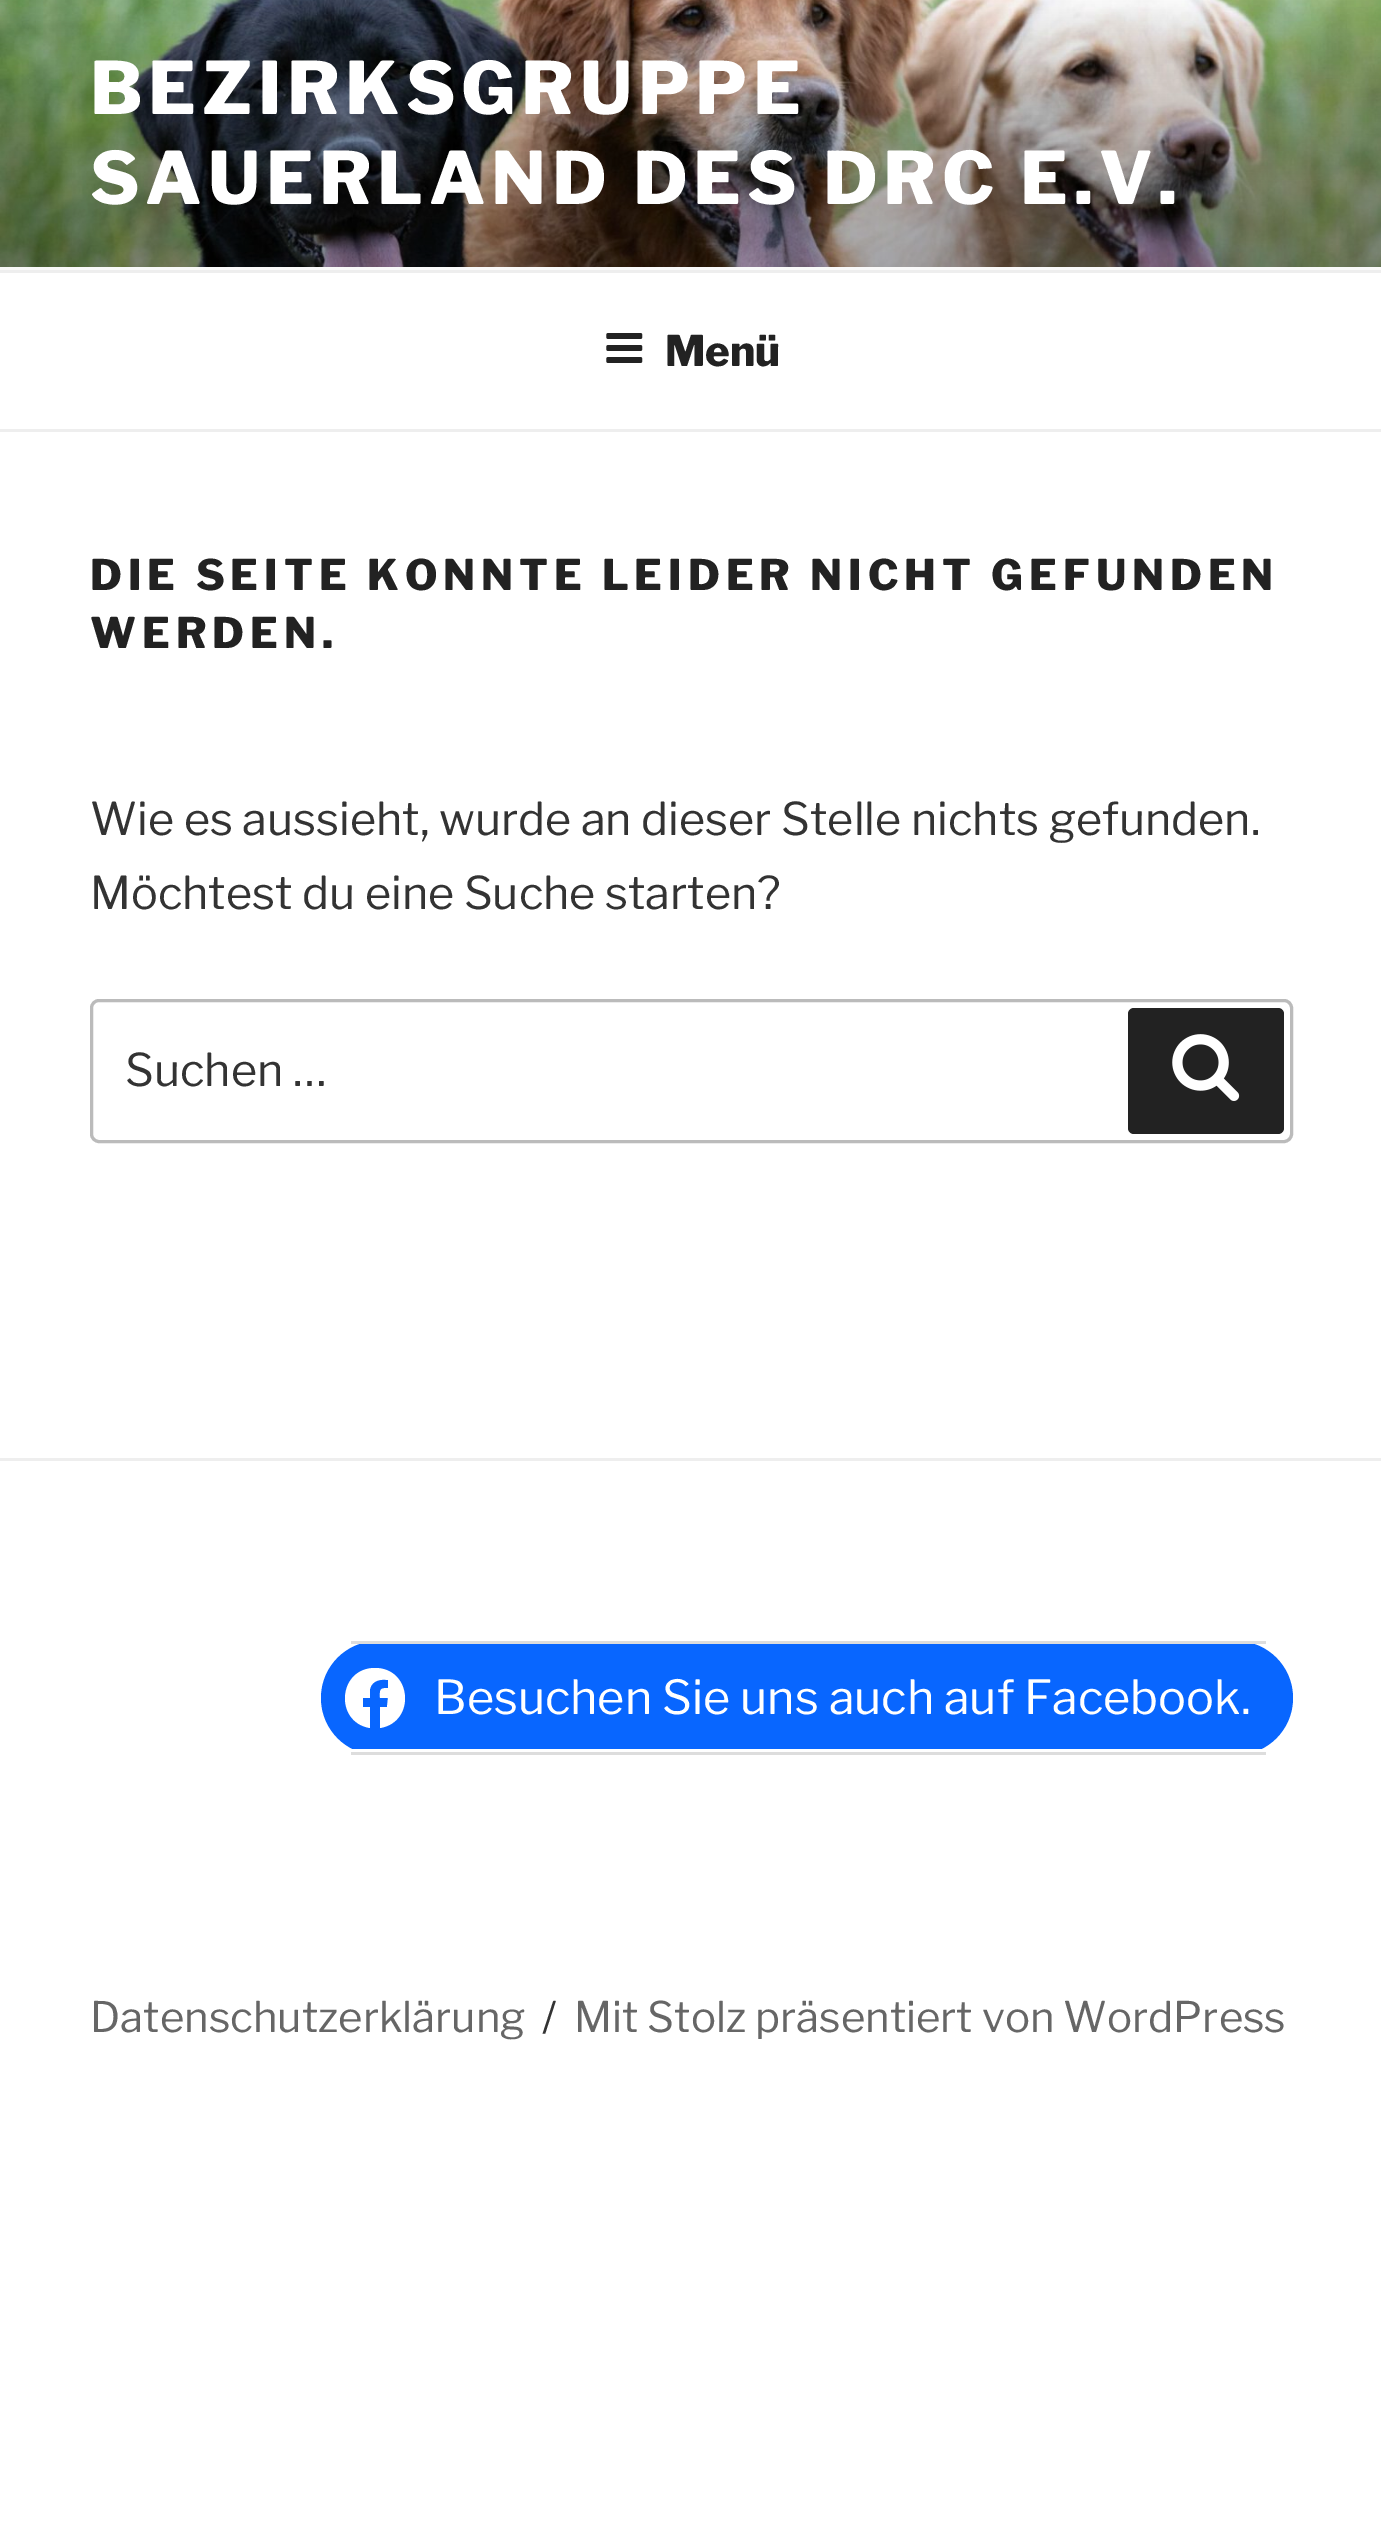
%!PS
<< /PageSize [1381 2526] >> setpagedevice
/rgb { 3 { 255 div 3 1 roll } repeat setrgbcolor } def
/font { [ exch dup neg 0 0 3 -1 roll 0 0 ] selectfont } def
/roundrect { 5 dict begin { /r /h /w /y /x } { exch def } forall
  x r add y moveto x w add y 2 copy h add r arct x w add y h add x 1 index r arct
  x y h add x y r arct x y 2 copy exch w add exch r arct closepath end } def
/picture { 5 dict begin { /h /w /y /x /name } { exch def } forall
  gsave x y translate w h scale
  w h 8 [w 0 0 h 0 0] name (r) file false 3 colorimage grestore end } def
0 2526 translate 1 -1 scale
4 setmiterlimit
255 255 255 rgb
0 0 1381 2526 rectfill
250 250 250 rgb
0 267 1381 3 rectfill
(img/1.rgb) 0 0 1381 267 picture
238 238 238 rgb
0 270 1381 3 rectfill
0 429 1381 3 rectfill
(img/2.rgb) 606 333 37 30 picture
187 187 187 rgb
3 setlinewidth
91.5 1000.5 1200 141 7.5 roundrect stroke
34 34 34 rgb
1128 1008 156 126 6 roundrect fill
(img/3.rgb) 1172 1034 68 67 picture
238 238 238 rgb
0 1458 1381 3 rectfill
8 102 255 rgb
321 1641 972 114 57 roundrect fill
[
  [351 1641 915 3 221 221 221]
  [351 1752 915 3 221 221 221]
  [352 1749 910 3 255 255 255]
] { aload pop rgb rectfill } forall
375 1668 moveto 338 1668 334 1722 370 1728 curveto 370 1707 lineto 363 1707 lineto 363 1698 lineto 370 1698 lineto 370 1689 lineto 372 1680 381 1679 388 1680 curveto 388 1688 lineto 379 1688 380 1690 380 1698 curveto 388 1698 lineto 387 1707 lineto 380 1707 lineto 380 1728 lineto 416 1722 412 1668 375 1668 curveto closepath fill
/LibreFranklin-Thin 72 font
90 114 moveto 5.75 0 (BEZIRKSGRUPPE) ashow
90 204 moveto 5.75 0 (SAUERLAND DES DRC E.V.) ashow
/LibreFranklin-Thin 42 font
34 34 34 rgb
665 366 moveto (Menü) show
90 590 moveto 5.9 0 (DIE SEITE KONNTE LEIDER NICHT GEFUNDEN) ashow
90 648 moveto 5.9 0 (WERDEN.) ashow
/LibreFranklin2-Thin 45 font
51 51 51 rgb
[
  [(Wie es aussieht, wurde an dieser Stelle nichts gefunden.) 90 835]
  [(Möchtest du eine Suche starten?) 90 909]
  [(Suchen …) 125 1086]
] { aload pop moveto show } forall
/LibreFranklin2-Thin 46.75 font
255 255 255 rgb
434 1714 moveto (Besuchen Sie uns auch auf Facebook.) show
/LibreFranklin2-Thin 42 font
102 102 102 rgb
90 2032 moveto (Datenschutzerklärung) show
51 51 51 rgb
542 2032 moveto (/) show
102 102 102 rgb
574 2032 moveto (Mit Stolz präsentiert von WordPress) show
showpage
